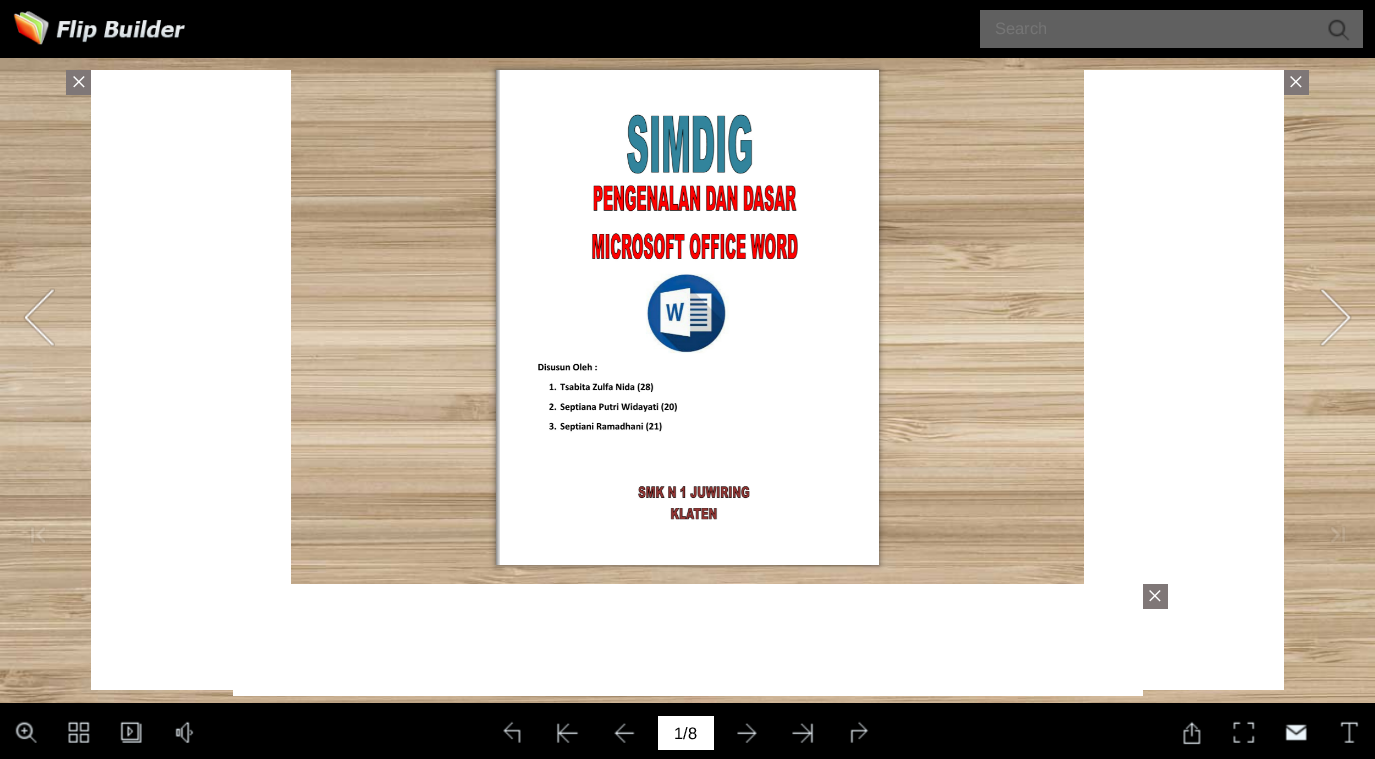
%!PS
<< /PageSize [1375 759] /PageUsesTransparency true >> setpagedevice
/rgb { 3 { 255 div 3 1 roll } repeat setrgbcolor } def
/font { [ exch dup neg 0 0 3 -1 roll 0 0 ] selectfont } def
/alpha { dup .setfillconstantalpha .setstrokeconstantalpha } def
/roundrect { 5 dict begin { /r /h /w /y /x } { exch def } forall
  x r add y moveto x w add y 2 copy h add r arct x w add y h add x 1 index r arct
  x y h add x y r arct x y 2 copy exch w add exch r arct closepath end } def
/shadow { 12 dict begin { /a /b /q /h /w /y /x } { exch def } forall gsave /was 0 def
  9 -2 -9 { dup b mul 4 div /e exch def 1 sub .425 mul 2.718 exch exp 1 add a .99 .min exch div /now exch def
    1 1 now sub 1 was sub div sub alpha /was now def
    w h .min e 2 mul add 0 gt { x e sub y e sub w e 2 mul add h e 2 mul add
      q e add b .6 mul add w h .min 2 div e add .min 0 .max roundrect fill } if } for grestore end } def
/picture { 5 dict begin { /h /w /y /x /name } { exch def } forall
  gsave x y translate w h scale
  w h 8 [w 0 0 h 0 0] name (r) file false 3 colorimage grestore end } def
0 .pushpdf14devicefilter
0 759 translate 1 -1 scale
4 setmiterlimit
255 255 255 rgb
0 0 1375 759 rectfill
(img/3.rgb) 0 58 1375 645 picture
[
  [91 70 200 620 255 255 255]
  [66 70 25 25 127 119 119]
  [0 0 1375 58 0 0 0]
] { aload pop rgb rectfill } forall
(img/1.rgb) 13 11 172 34 picture
96 96 96 rgb
980 10 383 38 rectfill
(img/2.rgb) 1328 19 22 22 picture
(img/4.rgb) 23 288 32 59 picture
40 40 40 rgb
496 70 383 495 0 3 0.7 shadow
gsave 496 70 moveto 501 70 lineto 501 565 lineto 496 565 lineto closepath clip newpath
<< /ShadingType 2 /ColorSpace /DeviceRGB /Coords [496 318 501 318] /Extend [true true] /Function << /FunctionType 2 /Domain [0 1] /C0 [0.541 0.541 0.541] /C1 [1 1 1] /N 1 >> >> shfill grestore
255 255 255 rgb
501 70 378 495 rectfill
(img/5.rgb) 538 114 260 406 picture
(img/6.rgb) 1319 288 33 59 picture
(img/7.rgb) 30 526 16 18 picture
(img/8.rgb) 1330 526 16 18 picture
0 0 0 rgb
0 703 1375 56 rectfill
(img/9.rgb) 15 721 22 22 picture
(img/10.rgb) 68 721 22 22 picture
(img/11.rgb) 120 721 22 22 picture
(img/12.rgb) 175 721 19 22 picture
(img/13.rgb) 503 721 18 22 picture
(img/14.rgb) 556 723 23 20 picture
(img/15.rgb) 614 723 21 20 picture
255 255 255 rgb
658 716 56 34 rectfill
(img/16.rgb) 737 723 20 20 picture
(img/17.rgb) 792 723 22 20 picture
(img/18.rgb) 850 721 19 22 picture
(img/19.rgb) 1183 721 18 24 picture
(img/20.rgb) 1233 721 22 22 picture
(img/21.rgb) 1285 724 22 17 picture
(img/22.rgb) 1340 721 19 22 picture
[
  [1084 70 200 620 255 255 255]
  [1284 70 25 25 127 119 119]
  [233 584 910 112 255 255 255]
  [1143 584 25 25 127 119 119]
] { aload pop rgb rectfill } forall
/LiberationSerif-Regular 28 font
255 255 255 rgb
71 91 moveto (×) show
/LiberationSans-Regular 16.5 font
117 117 117 rgb
995 34 moveto (Search) show
0 0 0 rgb
674 739 moveto (1/8) show
/LiberationSerif-Regular 28 font
255 255 255 rgb
1288 91 moveto (×) show
1147 605 moveto (×) show
.poppdf14devicefilter showpage
